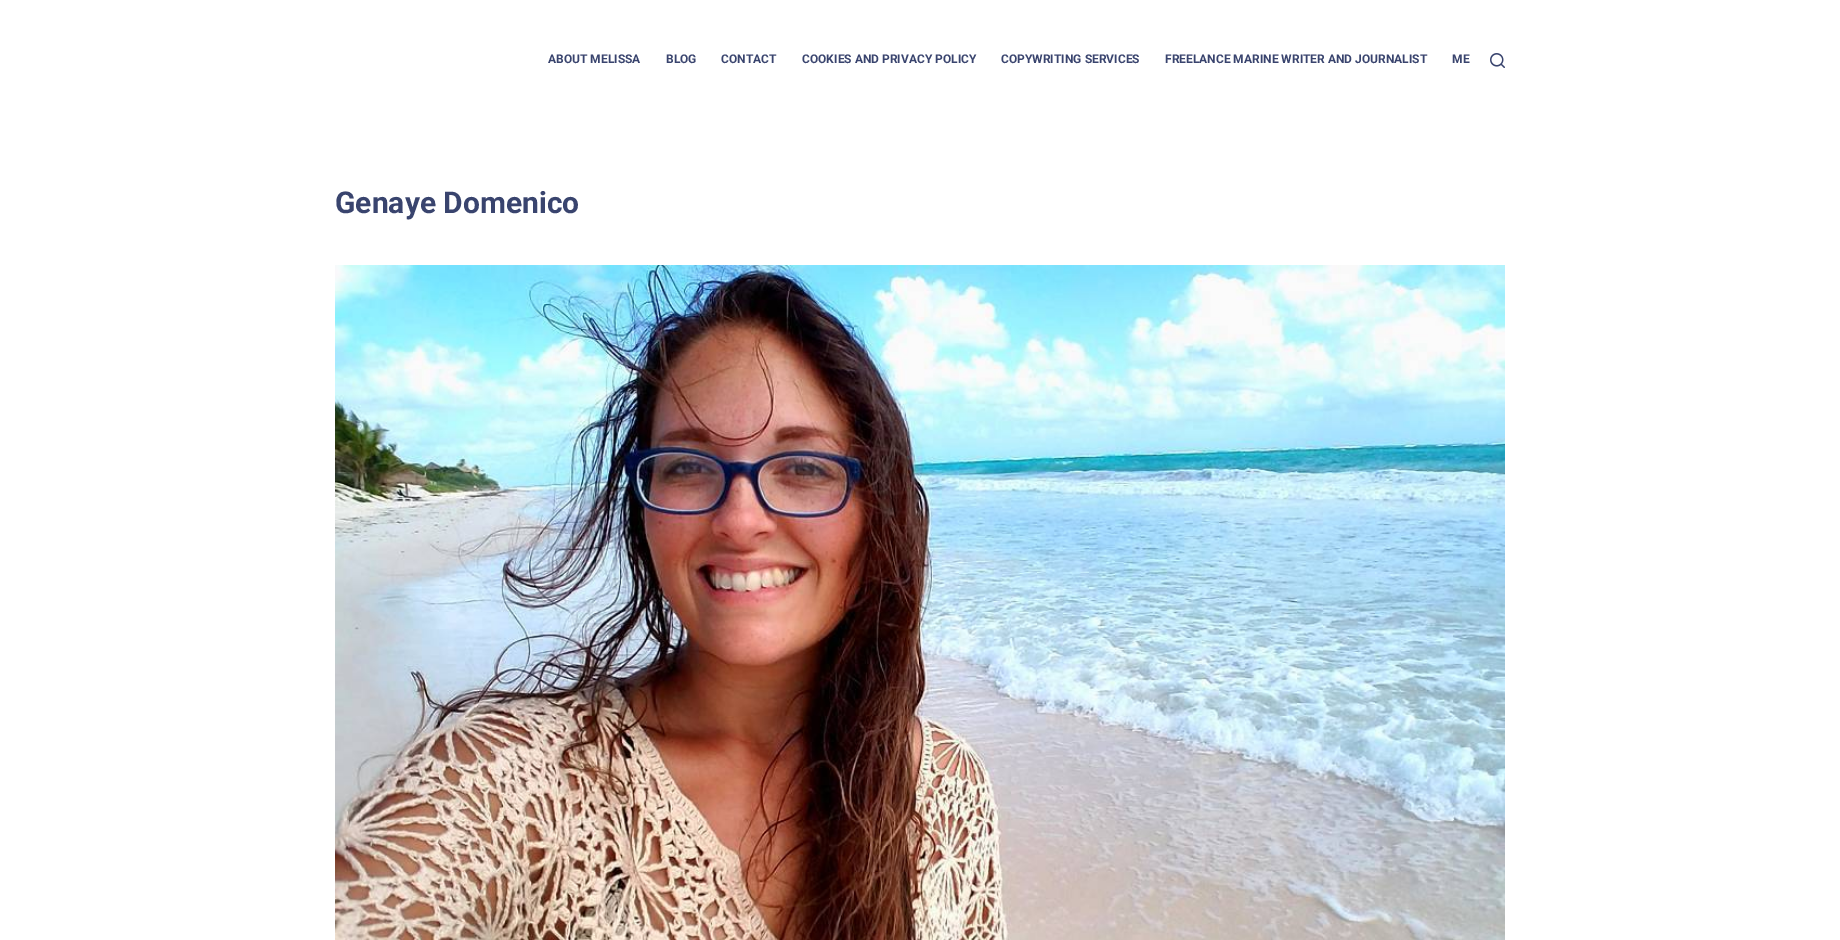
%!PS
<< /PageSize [1840 940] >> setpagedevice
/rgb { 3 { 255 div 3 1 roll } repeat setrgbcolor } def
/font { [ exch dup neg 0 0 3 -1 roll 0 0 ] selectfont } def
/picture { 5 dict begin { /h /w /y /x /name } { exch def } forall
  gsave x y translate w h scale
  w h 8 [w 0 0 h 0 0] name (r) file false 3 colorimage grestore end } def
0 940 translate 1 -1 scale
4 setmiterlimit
255 255 255 rgb
0 0 1840 940 rectfill
(img/1.rgb) 1490 53 15 15 picture
(img/2.rgb) 335 265 1170 675 picture
/Roboto-Bold 12 font
57 68 110 rgb
[
  [(ABOUT MELISSA) 548 63]
  [(BLOG) 666 63]
  [(CONTACT) 721 63]
  [(COOKIES AND PRIVACY POLICY) 802 63]
  [(COPYWRITING SERVICES) 1001 63]
  [(FREELANCE MARINE WRITER AND JOURNALIST) 1165 63]
  [(ME) 1452 63]
] { aload pop moveto show } forall
/Roboto-Bold 30 font
335 213 moveto (Genaye Domenico) show
showpage
